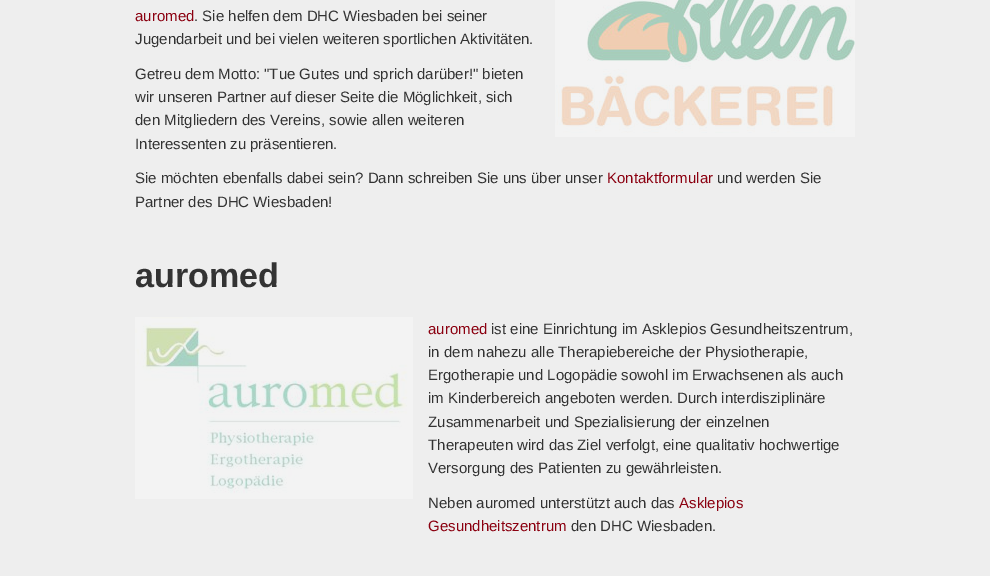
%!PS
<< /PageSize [990 576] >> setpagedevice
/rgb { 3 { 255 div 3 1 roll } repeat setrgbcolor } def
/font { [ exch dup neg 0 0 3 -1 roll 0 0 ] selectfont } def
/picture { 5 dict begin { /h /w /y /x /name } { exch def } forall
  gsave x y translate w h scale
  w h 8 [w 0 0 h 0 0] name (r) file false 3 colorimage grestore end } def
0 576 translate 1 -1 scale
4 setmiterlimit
238 238 238 rgb
0 0 990 576 rectfill
(img/1.rgb) 555 0 300 137 picture
(img/2.rgb) 135 317 278 182 picture
/LiberationSans-Regular 15 font
139 0 16 rgb
135 21 moveto (auromed) show
51 51 51 rgb
[
  [(. Sie helfen dem DHC Wiesbaden bei seiner) 194 21]
  [(Jugendarbeit und bei vielen weiteren sportlichen Aktivitäten.) 135 44]
  [(Getreu dem Motto: "Tue Gutes und sprich darüber!" bieten) 135 79]
  [(wir unseren Partner auf dieser Seite die Möglichkeit, sich) 135 102]
  [(den Mitgliedern des Vereins, sowie allen weiteren) 135 125]
  [(Interessenten zu präsentieren.) 135 149]
  [(Sie möchten ebenfalls dabei sein? Dann schreiben Sie uns über unser) 135 183]
] { aload pop moveto show } forall
139 0 16 rgb
607 183 moveto (Kontaktformular) show
51 51 51 rgb
717 183 moveto (und werden Sie) show
135 207 moveto (Partner des DHC Wiesbaden!) show
/LiberationSans-Bold 34 font
135 287 moveto (auromed) show
/LiberationSans-Regular 15 font
139 0 16 rgb
428 334 moveto (auromed) show
51 51 51 rgb
[
  [(ist eine Einrichtung im Asklepios Gesundheitszentrum,) 491 334]
  [(in dem nahezu alle Therapiebereiche der Physiotherapie,) 428 357]
  [(Ergotherapie und Logopädie sowohl im Erwachsenen als auch) 428 380]
  [(im Kinderbereich angeboten werden. Durch interdisziplinäre) 428 403]
  [(Zusammenarbeit und Spezialisierung der einzelnen) 428 427]
  [(Therapeuten wird das Ziel verfolgt, eine qualitativ hochwertige) 428 450]
  [(Versorgung des Patienten zu gewährleisten.) 428 473]
  [(Neben auromed unterstützt auch das) 428 508]
] { aload pop moveto show } forall
139 0 16 rgb
679 508 moveto (Asklepios) show
428 531 moveto (Gesundheitszentrum) show
51 51 51 rgb
571 531 moveto (den DHC Wiesbaden.) show
showpage
